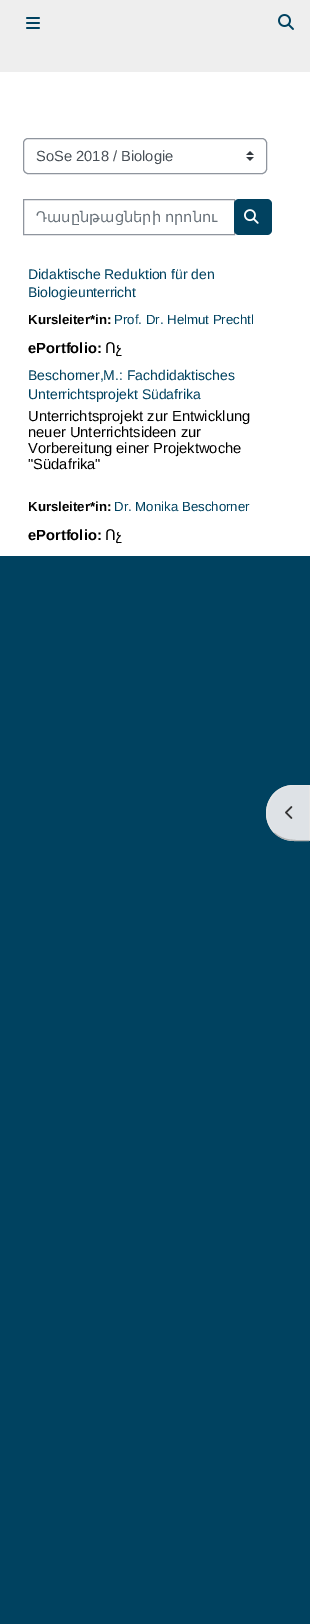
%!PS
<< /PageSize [310 1624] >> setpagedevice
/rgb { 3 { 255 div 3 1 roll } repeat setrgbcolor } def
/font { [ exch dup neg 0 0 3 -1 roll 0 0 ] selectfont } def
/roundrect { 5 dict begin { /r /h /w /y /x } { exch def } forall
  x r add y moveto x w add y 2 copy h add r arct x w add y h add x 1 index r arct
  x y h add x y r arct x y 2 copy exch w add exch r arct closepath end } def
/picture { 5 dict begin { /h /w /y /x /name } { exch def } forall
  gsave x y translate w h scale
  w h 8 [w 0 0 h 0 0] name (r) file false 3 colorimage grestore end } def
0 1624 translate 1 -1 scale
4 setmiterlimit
0 66 96 rgb
0 0 310 1624 rectfill
238 238 238 rgb
0 0 310 72 rectfill
(img/1.rgb) 26 17 14 12 picture
(img/2.rgb) 278 14 16 16 picture
255 255 255 rgb
0 72 310 484 rectfill
(img/3.rgb) 246 151 8 10 picture
143 149 158 rgb
23.5 138.5 243 35 4.5 roundrect stroke
23.5 199.5 211 35 rectstroke
1 66 96 rgb
234 199 38 36 5 roundrect fill
(img/4.rgb) 244 209 15 15 picture
222 226 230 rgb
294 785 moveto 310 785 lineto 310 841 lineto 294 841 lineto 278.5 841 266 828.5 266 813 curveto 266 797.5 278.5 785 294 785 curveto closepath fill
230 230 230 rgb
294 785 moveto 285.5 785 279 788 274 793 curveto 275 794 lineto 284 784 297 786 309 786 curveto 310 785 lineto closepath fill
310 785 moveto 309 786 lineto 309 840 lineto 310 841 lineto closepath fill
179 179 179 rgb
310 841 moveto 297 841 284 843 274 833 curveto 274.5 832.5 lineto 284 841.5 297 840 309 840 curveto closepath fill
230 230 230 rgb
274 793 moveto 264 803.5 263 822 274 833 curveto 274.5 832.5 lineto 264.5 822 265.5 804 275 794 curveto closepath fill
(img/5.rgb) 285 806 8 13 picture
/LiberationSans-Regular 14.7 font
73 80 87 rgb
36 161 moveto (SoSe 2018 / Biologie) show
gsave
36 208 186 17 rectclip
/DejaVuSans-Regular 14.7 font
106 115 123 rgb
36 222 moveto -1 0 32 (Դասընթացների որոնու) widthshow
grestore
/LiberationSans-Regular 14 font
0 66 96 rgb
28 279 moveto (Didaktische Reduktion für den) show
28 297 moveto (Biologieunterricht) show
/LiberationSans-Bold 13.25 font
0 0 0 rgb
28 324 moveto (Kursleiter*in:) show
/LiberationSans-Regular 13.25 font
0 66 96 rgb
114 324 moveto (Prof. Dr. Helmut Prechtl) show
/LiberationSans-Bold 14.7 font
0 0 0 rgb
28 353 moveto (ePortfolio:) show
/DejaVuSans-Regular 14.7 font
105 353 moveto (Ոչ) show
/LiberationSans-Regular 14 font
0 66 96 rgb
28 380 moveto (Beschorner,M.: Fachdidaktisches) show
28 399 moveto (Unterrichtsprojekt Südafrika) show
/LiberationSans-Regular 14.7 font
0 0 0 rgb
[
  [(Unterrichtsprojekt zur Entwicklung) 28 421]
  [(neuer Unterrichtsideen zur) 28 437]
  [(Vorbereitung einer Projektwoche) 28 453]
  [("Südafrika") 28 469]
] { aload pop moveto show } forall
/LiberationSans-Bold 13.25 font
28 511 moveto (Kursleiter*in:) show
/LiberationSans-Regular 13.25 font
0 66 96 rgb
114 511 moveto (Dr. Monika Beschorner) show
/LiberationSans-Bold 14.7 font
0 0 0 rgb
28 540 moveto (ePortfolio:) show
/DejaVuSans-Regular 14.7 font
105 540 moveto (Ոչ) show
showpage
